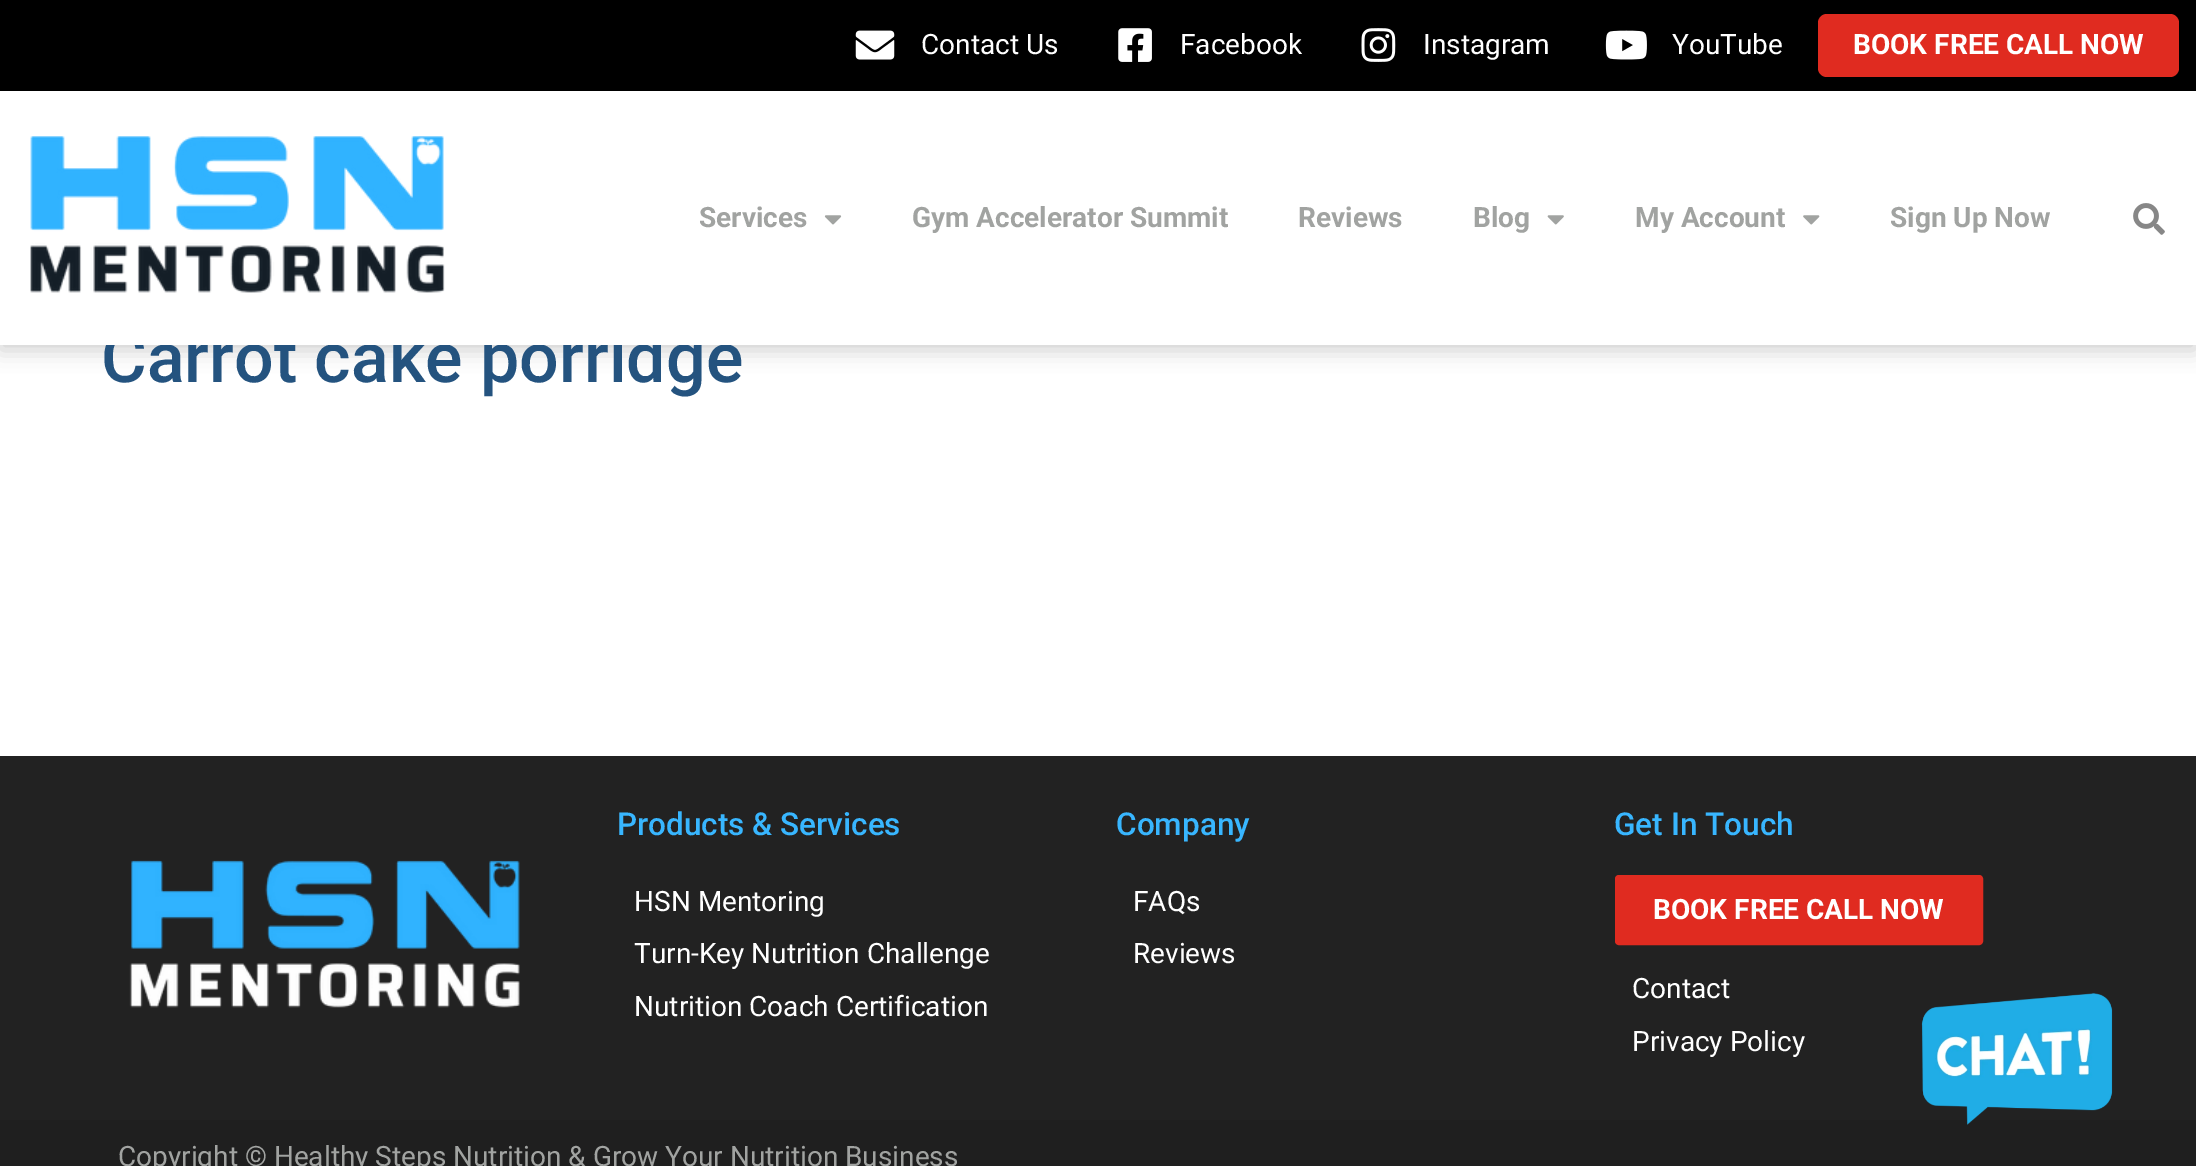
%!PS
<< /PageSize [2196 1166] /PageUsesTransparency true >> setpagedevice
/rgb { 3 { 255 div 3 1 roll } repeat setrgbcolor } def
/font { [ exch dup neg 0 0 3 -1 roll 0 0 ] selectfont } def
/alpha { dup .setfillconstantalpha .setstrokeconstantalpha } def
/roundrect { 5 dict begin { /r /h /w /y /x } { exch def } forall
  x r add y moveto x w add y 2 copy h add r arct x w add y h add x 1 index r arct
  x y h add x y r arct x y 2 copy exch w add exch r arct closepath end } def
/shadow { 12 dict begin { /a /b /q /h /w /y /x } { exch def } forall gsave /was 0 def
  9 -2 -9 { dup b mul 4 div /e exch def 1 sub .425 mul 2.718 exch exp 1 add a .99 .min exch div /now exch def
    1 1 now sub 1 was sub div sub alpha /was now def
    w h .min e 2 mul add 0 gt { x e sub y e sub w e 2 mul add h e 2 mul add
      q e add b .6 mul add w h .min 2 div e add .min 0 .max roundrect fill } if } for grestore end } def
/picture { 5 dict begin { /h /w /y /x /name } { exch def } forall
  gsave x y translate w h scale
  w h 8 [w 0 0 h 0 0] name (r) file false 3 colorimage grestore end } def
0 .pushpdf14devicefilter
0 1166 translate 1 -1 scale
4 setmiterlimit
255 255 255 rgb
0 0 2196 1166 rectfill
0 0 0 rgb
0 5 2196 345 0 10.5 0.19 shadow
0 0 2196 91 rectfill
(img/1.rgb) 855 30 40 30 picture
(img/2.rgb) 1118 28 34 34 picture
(img/3.rgb) 1361 28 35 34 picture
(img/4.rgb) 1605 30 42 30 picture
224 43 32 rgb
1818 14 361 63 9 roundrect fill
34 34 34 rgb
0 756 2196 364 rectfill
(img/10.rgb) 129 860 391 148 picture
224 43 32 rgb
1617 877 364 66 2 roundrect gsave fill grestore
4 setlinewidth
stroke
31 31 31 rgb
0 1120 2196 46 rectfill
(img/11.rgb) 1921 993 192 132 picture
/Roboto-Regular 28 font
255 255 255 rgb
[
  [(Contact Us) 921 54]
  [(Facebook) 1180 54]
  [(Instagram) 1423 54]
  [(YouTube) 1672 54]
] { aload pop moveto show } forall
/Roboto-Bold 28 font
1853 54 moveto (BOOK FREE CALL NOW) show
/Roboto-Medium 70 font
36 83 127 rgb
101 382 moveto (Carrot cake porridge) show
255 255 255 rgb
0 91 2196 254 rectfill
/Roboto-Bold 28 font
161 163 161 rgb
1890 227 moveto (Sign Up Now) show
(img/8.rgb) 1803 215 17 10 picture
1635 227 moveto (My Account) show
(img/7.rgb) 1547 215 17 10 picture
[
  [(Blog) 1473 227]
  [(Reviews) 1298 227]
  [(Gym Accelerator Summit) 912 227]
] { aload pop moveto show } forall
(img/6.rgb) 824 215 18 10 picture
699 227 moveto (Services) show
(img/9.rgb) 2133 203 32 32 picture
(img/5.rgb) 30 136 415 157 picture
/Roboto-Medium 31.5 font
56 182 255 rgb
617 835 moveto (Products & Services) show
/Roboto-Regular 28 font
255 255 255 rgb
[
  [(HSN Mentoring) 634 911]
  [(Turn-Key Nutrition Challenge) 634 963]
  [(Nutrition Coach Certification) 634 1016]
] { aload pop moveto show } forall
/Roboto-Medium 31.5 font
56 182 255 rgb
1116 835 moveto (Company) show
/Roboto-Regular 28 font
255 255 255 rgb
1133 911 moveto (FAQs) show
1133 963 moveto (Reviews) show
/Roboto-Medium 31.5 font
56 182 255 rgb
1614 835 moveto (Get In Touch) show
/Roboto-Bold 28 font
255 255 255 rgb
1653 919 moveto (BOOK FREE CALL NOW) show
/Roboto-Regular 28 font
1632 998 moveto (Contact) show
1632 1051 moveto (Privacy Policy) show
161 163 161 rgb
118 1166 moveto (Copyright © Healthy Steps Nutrition & Grow Your Nutrition Business) show
.poppdf14devicefilter showpage
